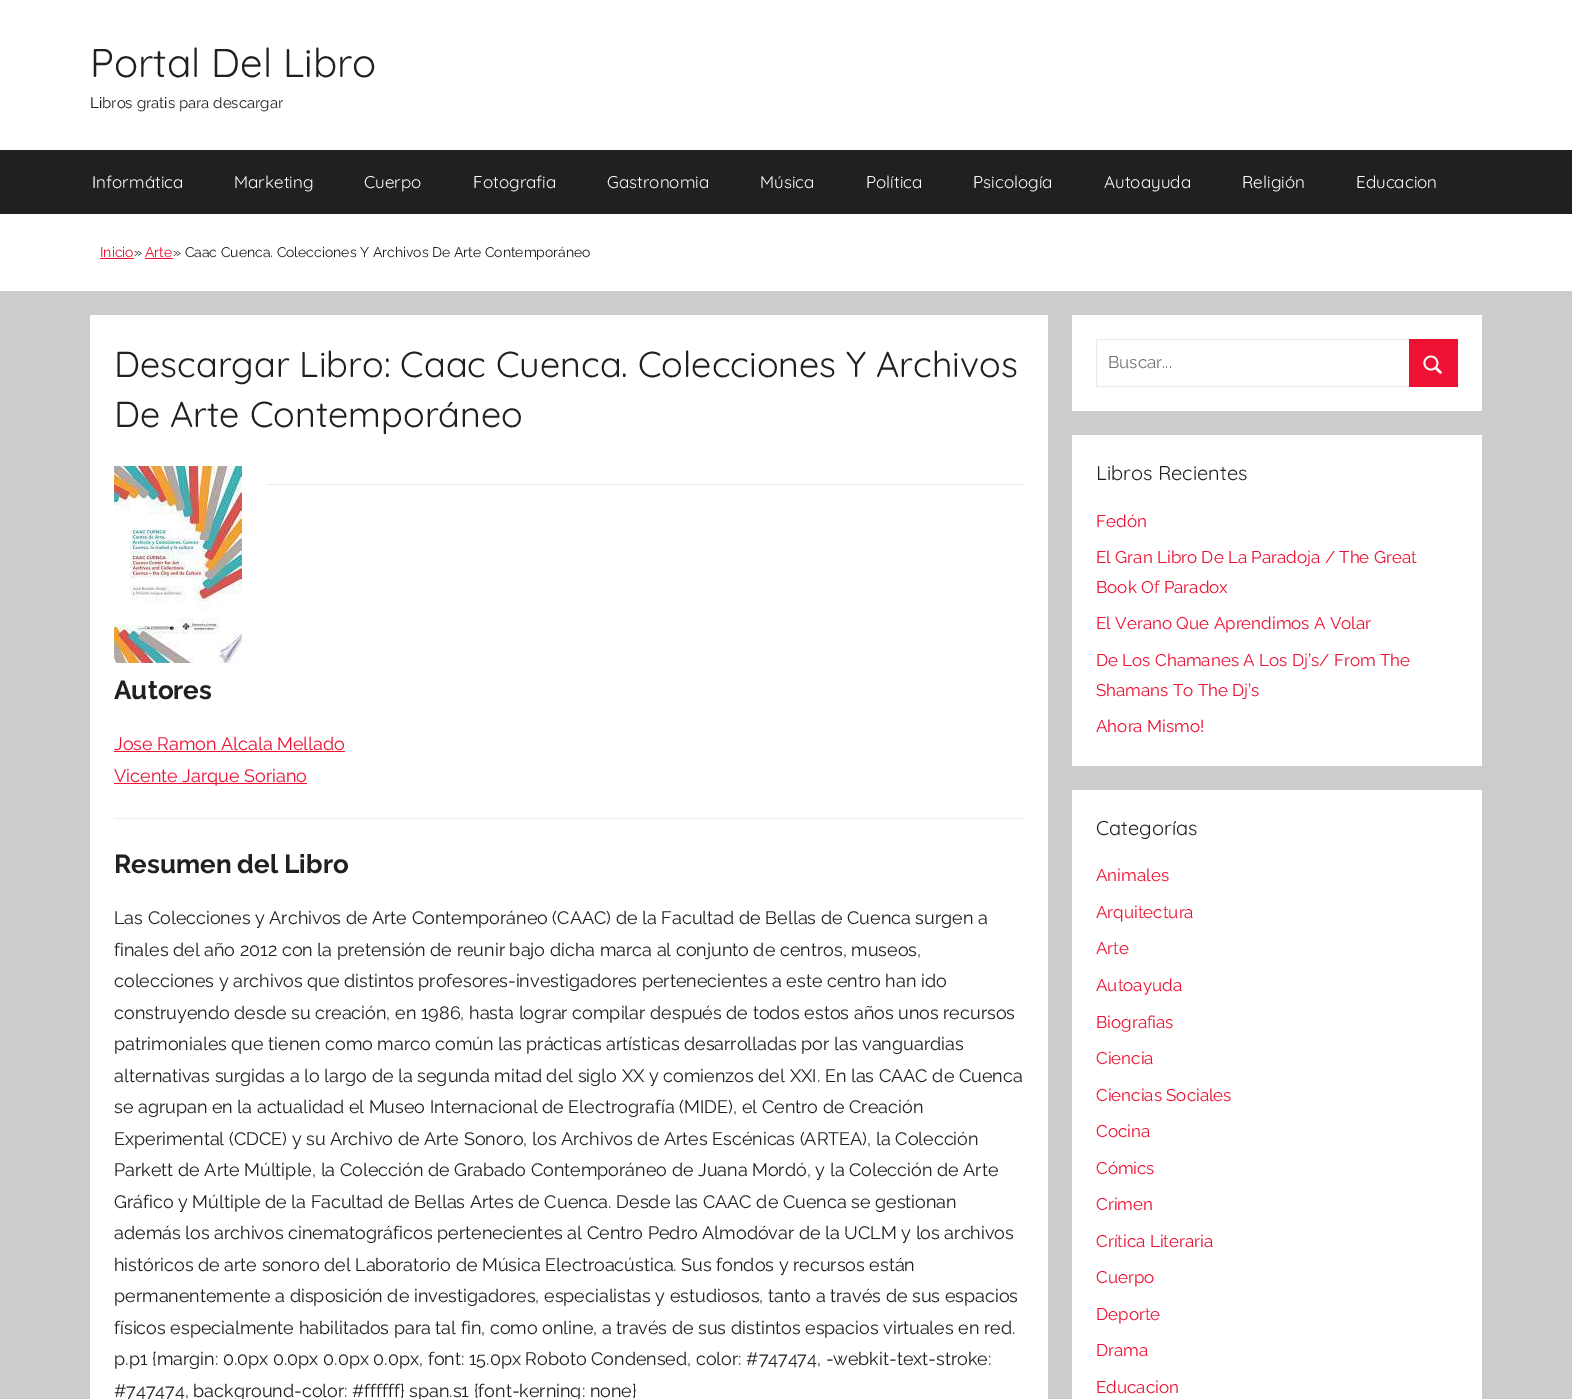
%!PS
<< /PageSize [1572 1399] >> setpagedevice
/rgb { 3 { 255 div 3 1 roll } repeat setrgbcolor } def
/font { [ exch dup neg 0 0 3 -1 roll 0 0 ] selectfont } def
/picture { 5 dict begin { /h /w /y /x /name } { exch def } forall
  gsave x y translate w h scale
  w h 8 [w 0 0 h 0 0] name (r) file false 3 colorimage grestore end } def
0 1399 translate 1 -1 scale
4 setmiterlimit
204 204 204 rgb
0 0 1572 1399 rectfill
[
  [0 0 1572 291 255 255 255]
  [0 150 1572 64 32 32 32]
  [100 258 34 1 238 17 51]
  [145 258 28 1 238 17 51]
  [90 315 958 1084 255 255 255]
] { aload pop rgb rectfill } forall
(img/1.rgb) 114 466 128 197 picture
[
  [266 484 758 1 236 236 236]
  [114 751 231 1 238 17 51]
  [114 783 193 1 238 17 51]
  [114 818 910 1 236 236 236]
  [1072 315 410 96 255 255 255]
] { aload pop rgb rectfill } forall
236 236 236 rgb
1096.5 339.5 361 47 rectstroke
238 17 51 rgb
1409 339 49 48 rectfill
(img/2.rgb) 1423 355 20 20 picture
255 255 255 rgb
1072 435 410 331 rectfill
1072 790 410 609 rectfill
/Quicksand-Regular 40 font
32 32 32 rgb
90 77 moveto (Portal Del Libro) show
/Raleway-Regular 15 font
90 108 moveto (Libros gratis para descargar) show
/Quicksand-Regular 17 font
255 255 255 rgb
[
  [(Informática) 92 188]
  [(Marketing) 234 188]
  [(Cuerpo) 364 188]
  [(Fotografia) 473 188]
  [(Gastronomia) 607 188]
  [(Música) 760 188]
  [(Política) 866 188]
  [(Psicología) 973 188]
  [(Autoayuda) 1104 188]
  [(Religión) 1242 188]
  [(Educacion) 1356 188]
] { aload pop moveto show } forall
/Raleway-Regular 14 font
238 17 51 rgb
100 257 moveto (Inicio) show
32 32 32 rgb
134 257 moveto (») show
238 17 51 rgb
145 257 moveto (Arte) show
32 32 32 rgb
173 257 moveto (» Caac Cuenca. Colecciones Y Archivos De Arte Contemporáneo) show
/Quicksand-Regular 36 font
114 377 moveto (Descargar Libro: Caac Cuenca. Colecciones Y Archivos) show
114 427 moveto (De Arte Contemporáneo) show
/Raleway-Bold 26 font
114 699 moveto (Autores) show
/Raleway-Regular 18 font
238 17 51 rgb
114 750 moveto (Jose Ramon Alcala Mellado) show
114 782 moveto (Vicente Jarque Soriano) show
/Raleway-Bold 26 font
32 32 32 rgb
114 873 moveto (Resumen del Libro) show
/Raleway-Regular 18 font
[
  [(Las Colecciones y Archivos de Arte Contemporáneo \(CAAC\) de la Facultad de Bellas de Cuenca surgen a) 114 924]
  [(finales del año 2012 con la pretensión de reunir bajo dicha marca al conjunto de centros, museos,) 114 956]
  [(colecciones y archivos que distintos profesores-investigadores pertenecientes a este centro han ido) 114 987]
  [(construyendo desde su creación, en 1986, hasta lograr compilar después de todos estos años unos recursos) 114 1019]
  [(patrimoniales que tienen como marco común las prácticas artísticas desarrolladas por las vanguardias) 114 1050]
  [(alternativas surgidas a lo largo de la segunda mitad del siglo XX y comienzos del XXI. En las CAAC de Cuenca) 114 1082]
  [(se agrupan en la actualidad el Museo Internacional de Electrografía \(MIDE\), el Centro de Creación) 114 1113]
  [(Experimental \(CDCE\) y su Archivo de Arte Sonoro, los Archivos de Artes Escénicas \(ARTEA\), la Colección) 114 1145]
  [(Parkett de Arte Múltiple, la Colección de Grabado Contemporáneo de Juana Mordó, y la Colección de Arte) 114 1176]
  [(Gráfico y Múltiple de la Facultad de Bellas Artes de Cuenca. Desde las CAAC de Cuenca se gestionan) 114 1208]
  [(además los archivos cinematográficos pertenecientes al Centro Pedro Almodóvar de la UCLM y los archivos) 114 1239]
  [(históricos de arte sonoro del Laboratorio de Música Electroacústica. Sus fondos y recursos están) 114 1271]
  [(permanentemente a disposición de investigadores, especialistas y estudiosos, tanto a través de sus espacios) 114 1302]
  [(físicos especialmente habilitados para tal fin, como online, a través de sus distintos espacios virtuales en red.) 114 1334]
  [(p.p1 {margin: 0.0px 0.0px 0.0px 0.0px, font: 15.0px Roboto Condensed, color: #747474, -webkit-text-stroke:) 114 1365]
  [(#747474, background-color: #ffffff} span.s1 {font-kerning: none}) 114 1397]
] { aload pop moveto show } forall
/Raleway-Regular 17 font
117 117 117 rgb
1108 368 moveto (Buscar...) show
/Quicksand-Regular 20 font
32 32 32 rgb
1096 480 moveto (Libros Recientes) show
/Raleway-Regular 17 font
238 17 51 rgb
[
  [(Fedón) 1096 527]
  [(El Gran Libro De La Paradoja / The Great) 1096 563]
  [(Book Of Paradox) 1096 593]
  [(El Verano Que Aprendimos A Volar) 1096 629]
  [(De Los Chamanes A Los Dj’s/ From The) 1096 666]
  [(Shamans To The Dj’s) 1096 696]
  [(Ahora Mismo!) 1096 732]
] { aload pop moveto show } forall
/Quicksand-Regular 20 font
32 32 32 rgb
1096 835 moveto (Categorías) show
/Raleway-Regular 17 font
238 17 51 rgb
[
  [(Animales) 1096 881]
  [(Arquitectura) 1096 918]
  [(Arte) 1096 954]
  [(Autoayuda) 1096 991]
  [(Biografias) 1096 1028]
  [(Ciencia) 1096 1064]
  [(Ciencias Sociales) 1096 1101]
  [(Cocina) 1096 1137]
  [(Cómics) 1096 1174]
  [(Crimen) 1096 1210]
  [(Crítica Literaria) 1096 1247]
  [(Cuerpo) 1096 1283]
  [(Deporte) 1096 1320]
  [(Drama) 1096 1356]
  [(Educacion) 1096 1393]
] { aload pop moveto show } forall
showpage
